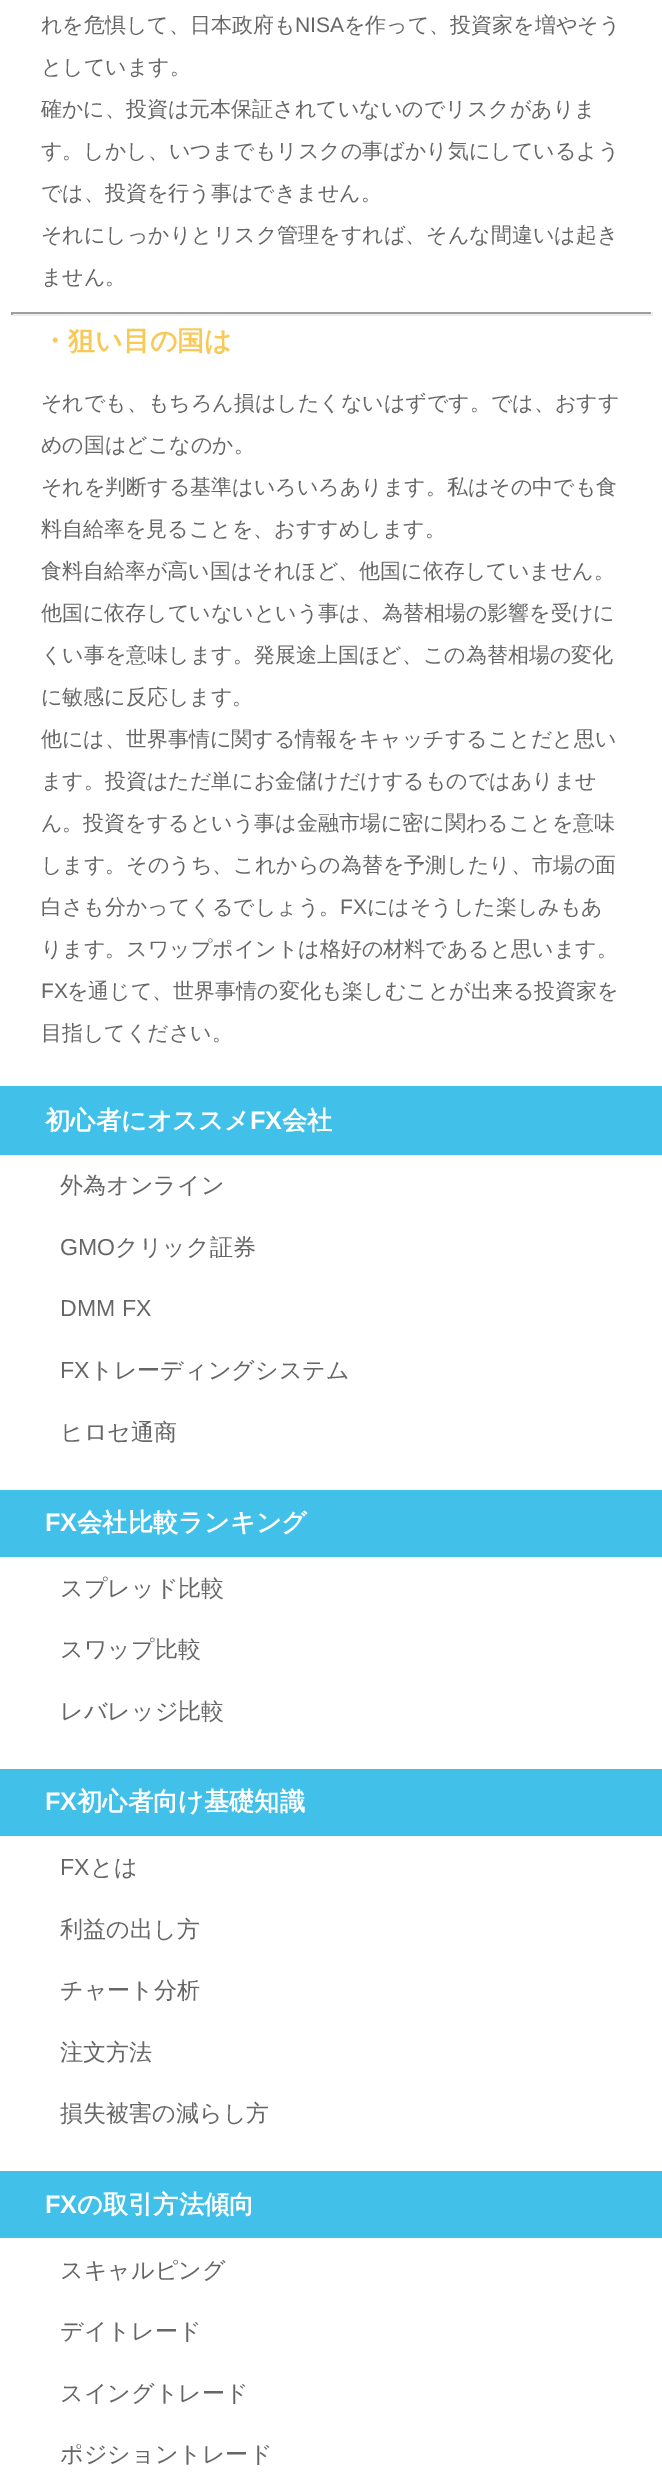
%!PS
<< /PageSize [662 2480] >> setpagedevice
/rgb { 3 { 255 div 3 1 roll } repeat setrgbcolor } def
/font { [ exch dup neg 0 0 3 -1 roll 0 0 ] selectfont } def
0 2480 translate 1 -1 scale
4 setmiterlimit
255 255 255 rgb
0 0 662 2480 rectfill
[
  [11 312 642 2 159 159 159]
  [651 312 2 3 238 238 238]
  [11 314 642 2 238 238 238]
  [11 312 2 3 159 159 159]
  [0 1086 662 69 65 192 233]
  [0 1490 662 67 65 192 233]
  [0 1769 662 67 65 192 233]
  [0 2171 662 67 65 192 233]
] { aload pop rgb rectfill } forall
/WenQuanYiZenHei-Medium 21 font
102 102 102 rgb
41 32 moveto (れを危惧して、日本政府も) show
/LiberationSans-Regular 21 font
295 32 moveto (NISA) show
/WenQuanYiZenHei-Medium 21 font
[
  [(を作って、投資家を増やそう) 344 32]
  [(としています。) 41 74]
  [(確かに、投資は元本保証されていないのでリスクがありま) 41 116]
  [(す。しかし、いつまでもリスクの事ばかり気にしているよう) 41 158]
  [(では、投資を行う事はできません。) 41 200]
  [(それにしっかりとリスク管理をすれば、そんな間違いは起き) 41 242]
  [(ません。) 41 284]
] { aload pop moveto show } forall
/WenQuanYiZenHei-Bold 27 font
249 201 85 rgb
41 350 moveto (・狙い目の国は) show
/WenQuanYiZenHei-Medium 21 font
102 102 102 rgb
[
  [(それでも、もちろん損はしたくないはずです。では、おすす) 41 410]
  [(めの国はどこなのか。) 41 452]
  [(それを判断する基準はいろいろあります。私はその中でも食) 41 494]
  [(料自給率を見ることを、おすすめします。) 41 536]
  [(食料自給率が高い国はそれほど、他国に依存していません。) 41 578]
  [(他国に依存していないという事は、為替相場の影響を受けに) 41 620]
  [(くい事を意味します。発展途上国ほど、この為替相場の変化) 41 662]
  [(に敏感に反応します。) 41 704]
  [(他には、世界事情に関する情報をキャッチすることだと思い) 41 746]
  [(ます。投資はただ単にお金儲けだけするものではありませ) 41 788]
  [(ん。投資をするという事は金融市場に密に関わることを意味) 41 830]
  [(します。そのうち、これからの為替を予測したり、市場の面) 41 872]
  [(白さも分かってくるでしょう。) 41 914]
] { aload pop moveto show } forall
/LiberationSans-Regular 21 font
340 914 moveto (FX) show
/WenQuanYiZenHei-Medium 21 font
367 914 moveto (にはそうした楽しみもあ) show
41 956 moveto (ります。スワップポイントは格好の材料であると思います。) show
/LiberationSans-Regular 21 font
41 998 moveto (FX) show
/WenQuanYiZenHei-Medium 21 font
67 998 moveto (を通じて、世界事情の変化も楽しむことが出来る投資家を) show
41 1040 moveto (目指してください。) show
/WenQuanYiZenHei-Bold 25.25 font
255 255 255 rgb
45 1129 moveto (初心者にオススメ) show
/LiberationSans-Bold 25.25 font
250 1129 moveto (FX) show
/WenQuanYiZenHei-Bold 25.25 font
282 1129 moveto (会社) show
/WenQuanYiZenHei-Medium 23.1 font
102 102 102 rgb
60 1193 moveto (外為オンライン) show
/LiberationSans-Regular 23.1 font
60 1255 moveto (GMO) show
/WenQuanYiZenHei-Medium 23.1 font
115 1255 moveto (クリック証券) show
/LiberationSans-Regular 23.1 font
60 1316 moveto (DMM FX) show
60 1378 moveto (FX) show
/WenQuanYiZenHei-Medium 23.1 font
90 1378 moveto (トレーディングシステム) show
60 1440 moveto (ヒロセ通商) show
/LiberationSans-Bold 25.25 font
255 255 255 rgb
45 1531 moveto (FX) show
/WenQuanYiZenHei-Bold 25.25 font
77 1531 moveto (会社比較ランキング) show
/WenQuanYiZenHei-Medium 23.1 font
102 102 102 rgb
[
  [(スプレッド比較) 60 1596]
  [(スワップ比較) 60 1657]
  [(レバレッジ比較) 60 1719]
] { aload pop moveto show } forall
/LiberationSans-Bold 25.25 font
255 255 255 rgb
45 1810 moveto (FX) show
/WenQuanYiZenHei-Bold 25.25 font
77 1810 moveto (初心者向け基礎知識) show
/LiberationSans-Regular 23.1 font
102 102 102 rgb
60 1875 moveto (FX) show
/WenQuanYiZenHei-Medium 23.1 font
[
  [(とは) 90 1875]
  [(利益の出し方) 60 1937]
  [(チャート分析) 60 1998]
  [(注文方法) 60 2060]
  [(損失被害の減らし方) 60 2121]
] { aload pop moveto show } forall
/LiberationSans-Bold 25.25 font
255 255 255 rgb
45 2213 moveto (FX) show
/WenQuanYiZenHei-Bold 25.25 font
77 2213 moveto (の取引方法傾向) show
/WenQuanYiZenHei-Medium 23.1 font
102 102 102 rgb
[
  [(スキャルピング) 60 2278]
  [(デイトレード) 60 2339]
  [(スイングトレード) 60 2401]
  [(ポジショントレード) 60 2462]
] { aload pop moveto show } forall
showpage
